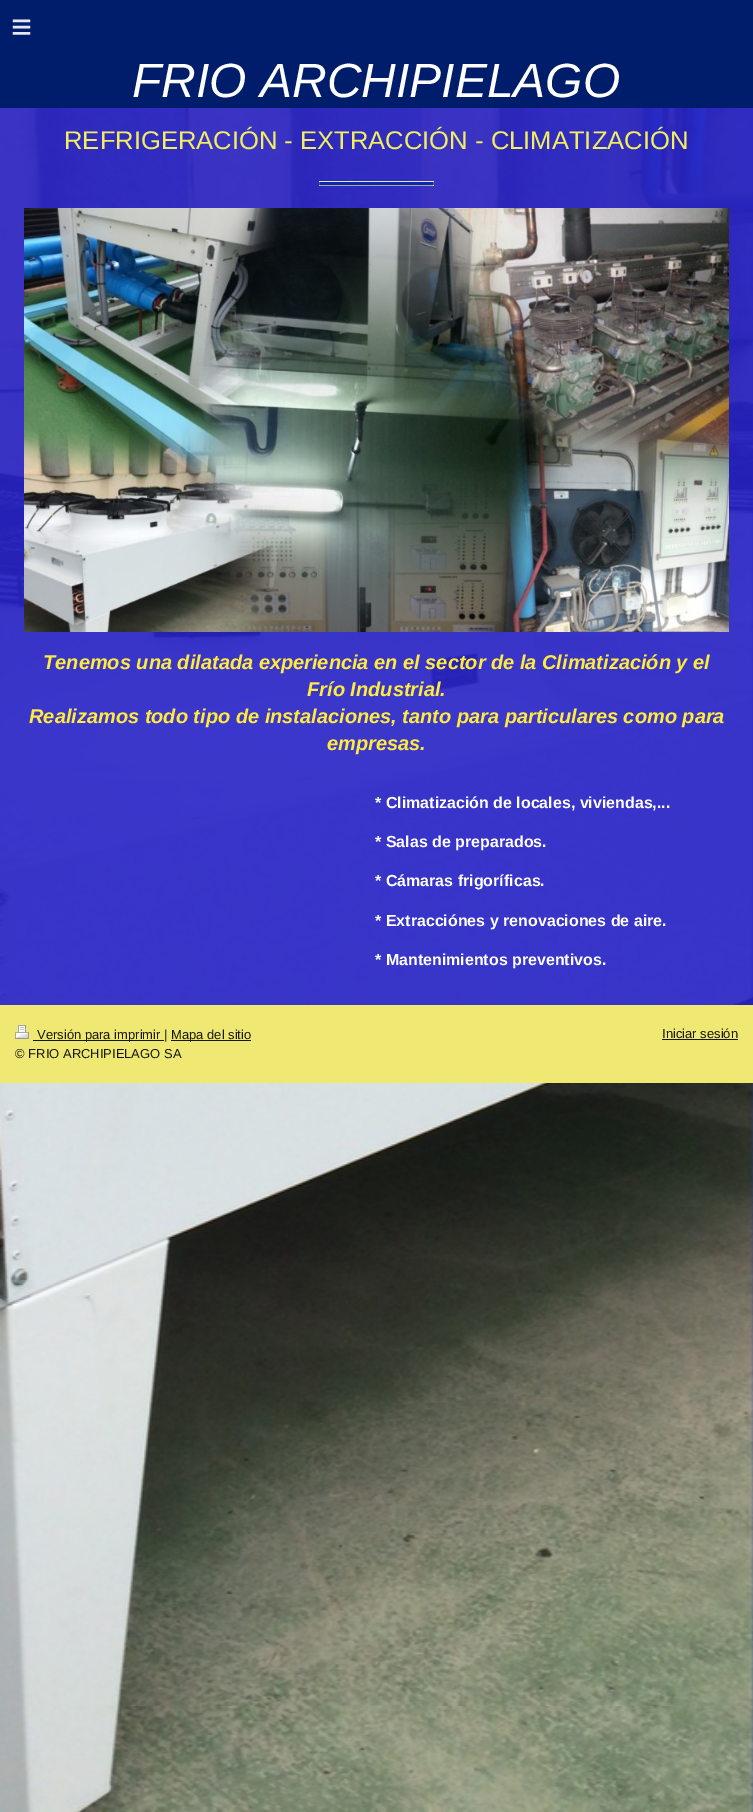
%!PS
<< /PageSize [753 1812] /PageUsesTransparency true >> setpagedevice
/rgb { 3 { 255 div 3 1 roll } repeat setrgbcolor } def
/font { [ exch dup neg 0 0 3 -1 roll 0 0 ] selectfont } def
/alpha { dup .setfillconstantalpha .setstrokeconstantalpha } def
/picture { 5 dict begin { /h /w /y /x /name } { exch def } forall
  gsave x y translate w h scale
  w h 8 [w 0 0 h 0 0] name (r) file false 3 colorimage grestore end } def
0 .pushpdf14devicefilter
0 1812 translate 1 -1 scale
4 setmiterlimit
255 255 255 rgb
0 0 753 1812 rectfill
(img/1.rgb) 0 108 753 1704 picture
0 29 108 rgb
0 0 753 108 rectfill
0.9 alpha
39 34 198 rgb
0 108 753 897 rectfill
1 alpha
(img/2.rgb) 319 181 115 5 picture
(img/3.rgb) 24 208 705 424 picture
239 233 115 rgb
0 1005 753 78 rectfill
(img/4.rgb) 15 1025 14 14 picture
[
  [33 1040 131 1 24 23 12]
  [171 1040 80 1 24 23 12]
  [662 1039 76 1 24 23 12]
] { aload pop rgb rectfill } forall
/LiberationSans-Regular 36 font
230 232 240 rgb
11 39 moveto 10 0 (≡) ashow
/LiberationSans-Italic 48 font
255 255 255 rgb
132 97 moveto (FRIO ARCHIPIELAGO) show
/LiberationSans-Regular 25.6 font
241 239 96 rgb
64 149 moveto (REFRIGERACIÓN - EXTRACCIÓN - CLIMATIZACIÓN) show
/LiberationSans-BoldItalic 20 font
255 235 60 rgb
[
  [(Tenemos una dilatada experiencia en el sector de la Climatización y el) 43 669]
  [(Frío Industrial.) 307 696]
  [(Realizamos todo tipo de instalaciones, tanto para particulares como para) 29 723]
  [(empresas.) 327 750]
] { aload pop moveto show } forall
/LiberationSans-Bold 16 font
255 255 255 rgb
[
  [(* Climatización de locales, viviendas,...) 375 808]
  [(* Salas de preparados.) 375 847]
  [(* Cámaras frigoríficas.) 375 886]
  [(* Extracciónes y renovaciones de aire.) 375 926]
  [(* Mantenimientos preventivos.) 375 965]
] { aload pop moveto show } forall
/LiberationSans-Regular 13 font
24 23 12 rgb
[
  [(Versión para imprimir |) 37 1039]
  [(Mapa del sitio) 171 1039]
  [(© FRIO ARCHIPIELAGO SA) 15 1058]
  [(Iniciar sesión) 662 1038]
] { aload pop moveto show } forall
.poppdf14devicefilter showpage
